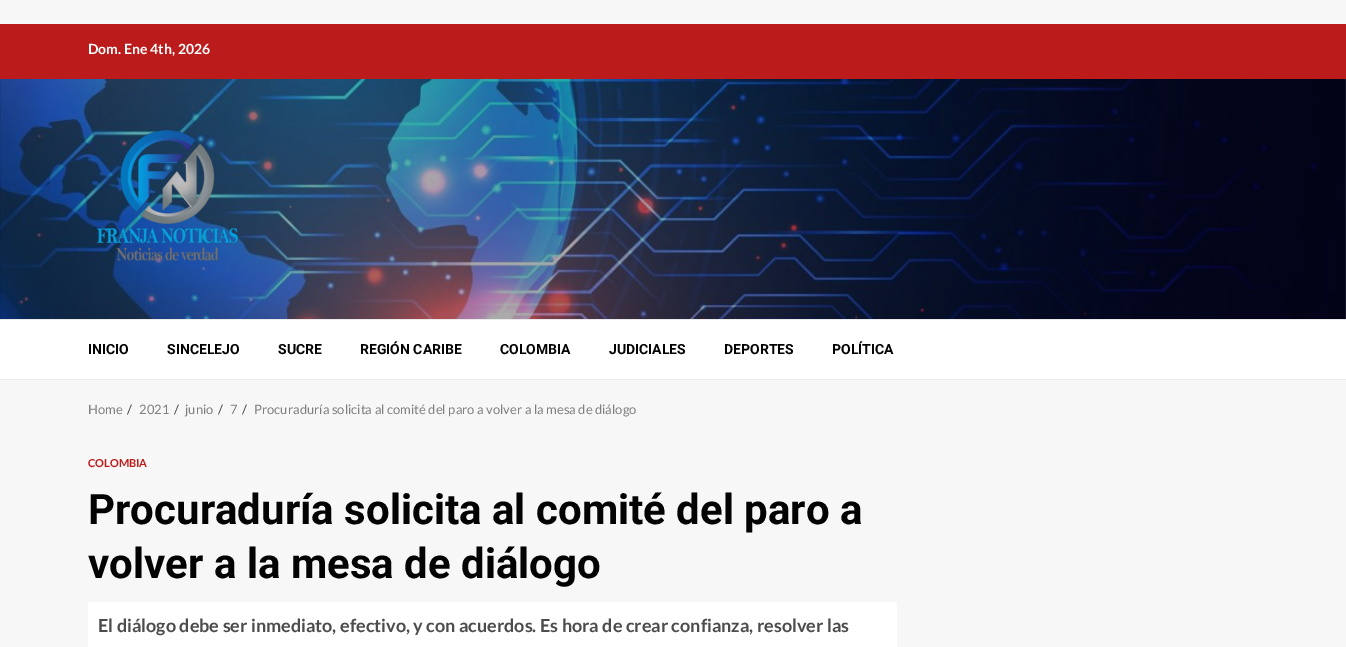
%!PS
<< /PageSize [1346 647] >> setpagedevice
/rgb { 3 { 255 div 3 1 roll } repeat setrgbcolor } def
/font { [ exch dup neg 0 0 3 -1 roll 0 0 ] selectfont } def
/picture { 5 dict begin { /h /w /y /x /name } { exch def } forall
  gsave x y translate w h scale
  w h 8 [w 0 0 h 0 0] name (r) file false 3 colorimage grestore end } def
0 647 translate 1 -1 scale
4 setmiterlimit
247 247 247 rgb
0 0 1346 647 rectfill
255 255 255 rgb
0 320 1346 59 rectfill
188 27 27 rgb
0 24 1346 55 rectfill
(img/1.rgb) 0 79 1346 240 picture
(img/2.rgb) 97 130 141 131 picture
[
  [0 319 1346 1 234 234 234]
  [0 379 1346 1 234 234 234]
  [88 602 809 45 255 255 255]
] { aload pop rgb rectfill } forall
/Lato-Bold 14 font
88 54 moveto (Dom. Ene 4th, 2026) show
/Roboto-Bold 14 font
3 3 3 rgb
[
  [(INICIO) 88 354]
  [(SINCELEJO) 167 354]
  [(SUCRE) 278 354]
  [(REGIÓN CARIBE) 360 354]
  [(COLOMBIA) 500 354]
  [(JUDICIALES) 609 354]
  [(DEPORTES) 724 354]
  [(POLÍTICA) 832 354]
] { aload pop moveto show } forall
/Lato-Regular 13 font
127 127 127 rgb
88 414 moveto (Home) show
59 64 72 rgb
127 414 moveto (/) show
127 127 127 rgb
139 414 moveto (2021) show
59 64 72 rgb
174 414 moveto (/) show
127 127 127 rgb
185 414 moveto (junio) show
59 64 72 rgb
218 414 moveto (/) show
127 127 127 rgb
230 414 moveto (7) show
59 64 72 rgb
242 414 moveto (/) show
127 127 127 rgb
254 414 moveto (Procuraduría solicita al comité del paro a volver a la mesa de diálogo) show
/Lato-Bold 11 font
188 27 27 rgb
88 467 moveto (COLOMBIA) show
/Roboto-Bold 42 font
3 3 3 rgb
88 524 moveto (Procuraduría solicita al comité del paro a) show
88 578 moveto (volver a la mesa de diálogo) show
/Lato-Bold 18 font
76 76 76 rgb
98 632 moveto (El diálogo debe ser inmediato, efectivo, y con acuerdos. Es hora de crear confianza, resolver las) show
showpage
